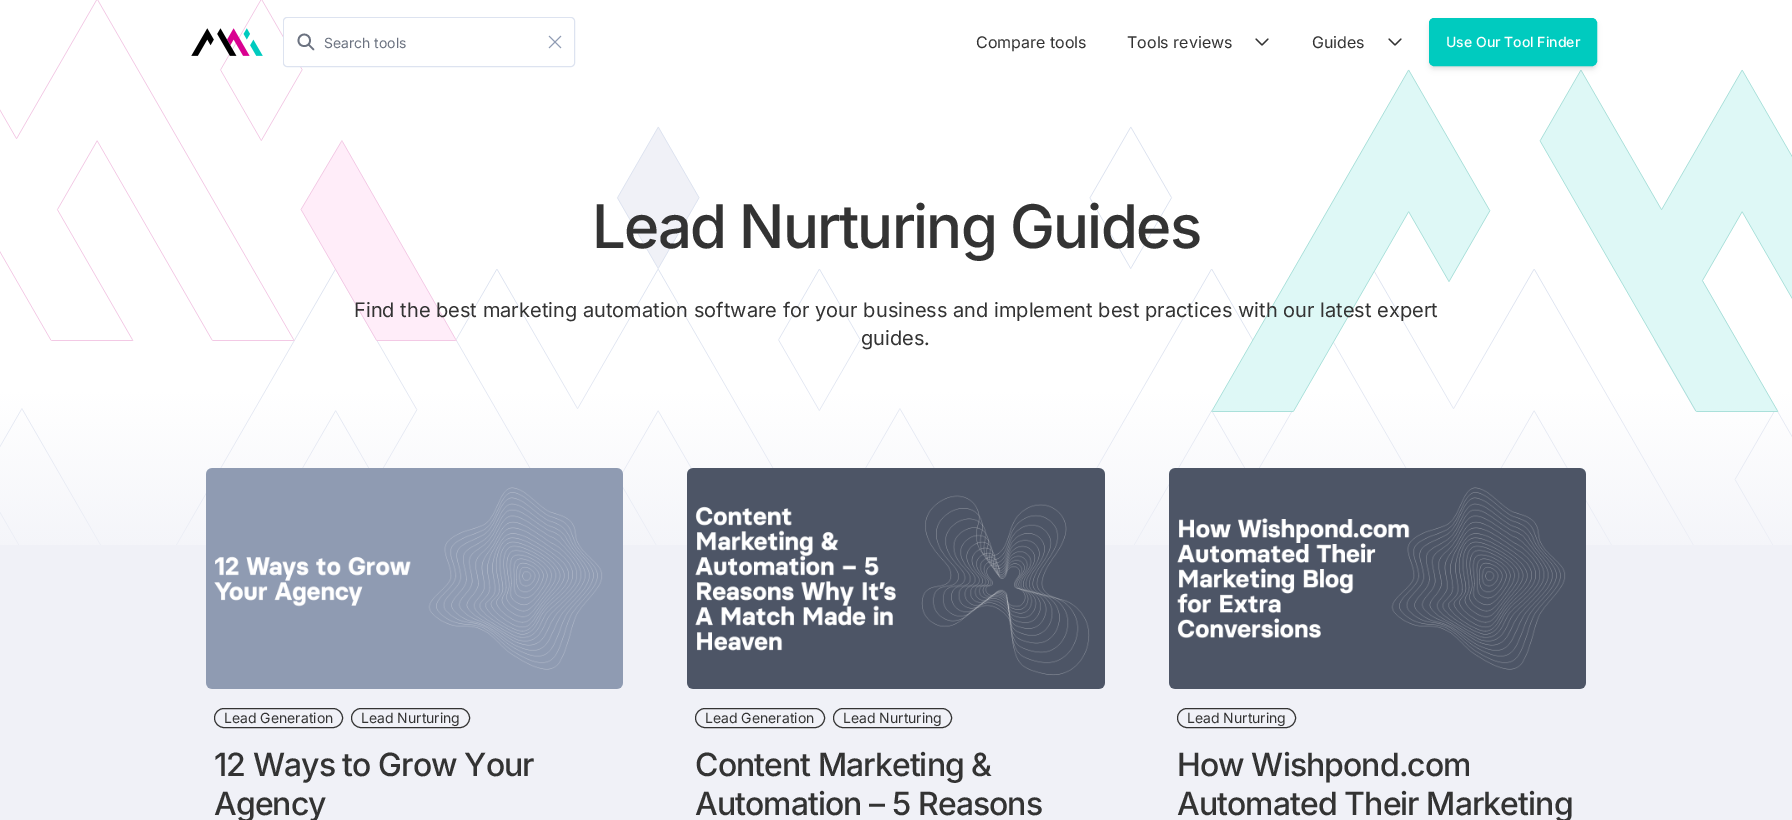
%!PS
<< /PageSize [1792 820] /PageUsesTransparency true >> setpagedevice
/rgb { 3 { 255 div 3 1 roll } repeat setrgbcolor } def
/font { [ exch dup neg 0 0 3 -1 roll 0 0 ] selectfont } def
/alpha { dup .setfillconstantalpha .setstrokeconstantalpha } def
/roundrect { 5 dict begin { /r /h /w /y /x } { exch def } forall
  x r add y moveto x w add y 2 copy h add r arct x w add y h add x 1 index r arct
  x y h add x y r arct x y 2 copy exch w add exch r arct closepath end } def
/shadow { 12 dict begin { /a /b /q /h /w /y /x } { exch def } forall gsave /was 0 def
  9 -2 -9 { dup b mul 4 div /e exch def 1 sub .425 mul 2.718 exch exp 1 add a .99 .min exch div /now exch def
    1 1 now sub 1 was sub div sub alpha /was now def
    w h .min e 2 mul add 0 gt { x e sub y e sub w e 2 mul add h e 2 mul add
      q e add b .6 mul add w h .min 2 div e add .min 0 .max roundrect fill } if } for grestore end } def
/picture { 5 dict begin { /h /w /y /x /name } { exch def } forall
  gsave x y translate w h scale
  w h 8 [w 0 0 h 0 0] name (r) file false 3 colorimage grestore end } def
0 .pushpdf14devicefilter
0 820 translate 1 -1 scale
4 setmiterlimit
240 241 247 rgb
0 0 1792 820 rectfill
(img/1.rgb) 0 0 1792 545 picture
(img/2.rgb) 191 28 72 28 picture
221 227 240 rgb
283.5 17.5 291 49 3.5 roundrect stroke
255 255 255 rgb
284 18 290 48 5 roundrect fill
107 114 128 rgb
1.7 setlinewidth
1 setlinecap
1 setlinejoin
313.5 49.5 moveto 308.5 44.5 lineto 310 40.5 moveto 310 48 298.5 48 298.5 40.5 curveto 298.5 32.5 310 32.5 310 40.5 curveto closepath stroke
(img/3.rgb) 548 35 14 14 picture
51 51 51 rgb
1.2 setlinewidth
1268 39 moveto 1262 45 lineto 1256 39 lineto stroke
1401 39 moveto 1395 45 lineto 1389 39 lineto stroke
0 0 0 rgb
1431 22 164 44 3 2 0.1 shadow
1430 23 166 46 4 3 0.1 shadow
0 203 191 rgb
1429.5 18.5 167 47 4.5 roundrect gsave fill grestore
1 setlinewidth
0 setlinecap
0 setlinejoin
stroke
(img/4.rgb) 206 468 417 221 picture
51 51 51 rgb
214.5 708.5 128 19 9.5 roundrect stroke
351.5 708.5 118 19 9.5 roundrect stroke
(img/5.rgb) 687 468 418 221 picture
695.5 708.5 129 19 9.5 roundrect stroke
833.5 708.5 118 19 9.5 roundrect stroke
(img/6.rgb) 1169 468 417 221 picture
1177.5 708.5 118 19 9.5 roundrect stroke
/Inter-Regular 14 font
107 114 128 rgb
324 48 moveto (Search tools) show
/Inter-Regular 16 font
51 51 51 rgb
[
  [(Compare tools) 976 48]
  [(Tools reviews) 1127 48]
  [(Guides) 1312 48]
] { aload pop moveto show } forall
/Inter-Medium 14 font
255 255 255 rgb
1446 47 moveto (Use Our Tool Finder) show
/Inter-Medium 60 font
51 51 51 rgb
592 248 moveto -1.8 0 (Lead Nurturing Guides) ashow
/Inter-Regular 20 font
354 317 moveto (Find the best marketing automation software for your business and implement best practices with our latest expert) show
861 345 moveto (guides.) show
/Inter-Regular 14 font
224 723 moveto (Lead Generation) show
361 723 moveto (Lead Nurturing) show
/Inter-Medium 32 font
214 776 moveto -0.95 0 (12 Ways to Grow Your) ashow
214 815 moveto -0.95 0 (Agency) ashow
/Inter-Regular 14 font
705 723 moveto (Lead Generation) show
843 723 moveto (Lead Nurturing) show
/Inter-Medium 32 font
695 776 moveto -0.95 0 (Content Marketing &) ashow
695 815 moveto -0.95 0 (Automation – 5 Reasons) ashow
/Inter-Regular 14 font
1187 723 moveto (Lead Nurturing) show
/Inter-Medium 32 font
1177 776 moveto -0.95 0 (How Wishpond.com) ashow
1177 815 moveto -0.95 0 (Automated Their Marketing) ashow
.poppdf14devicefilter showpage
